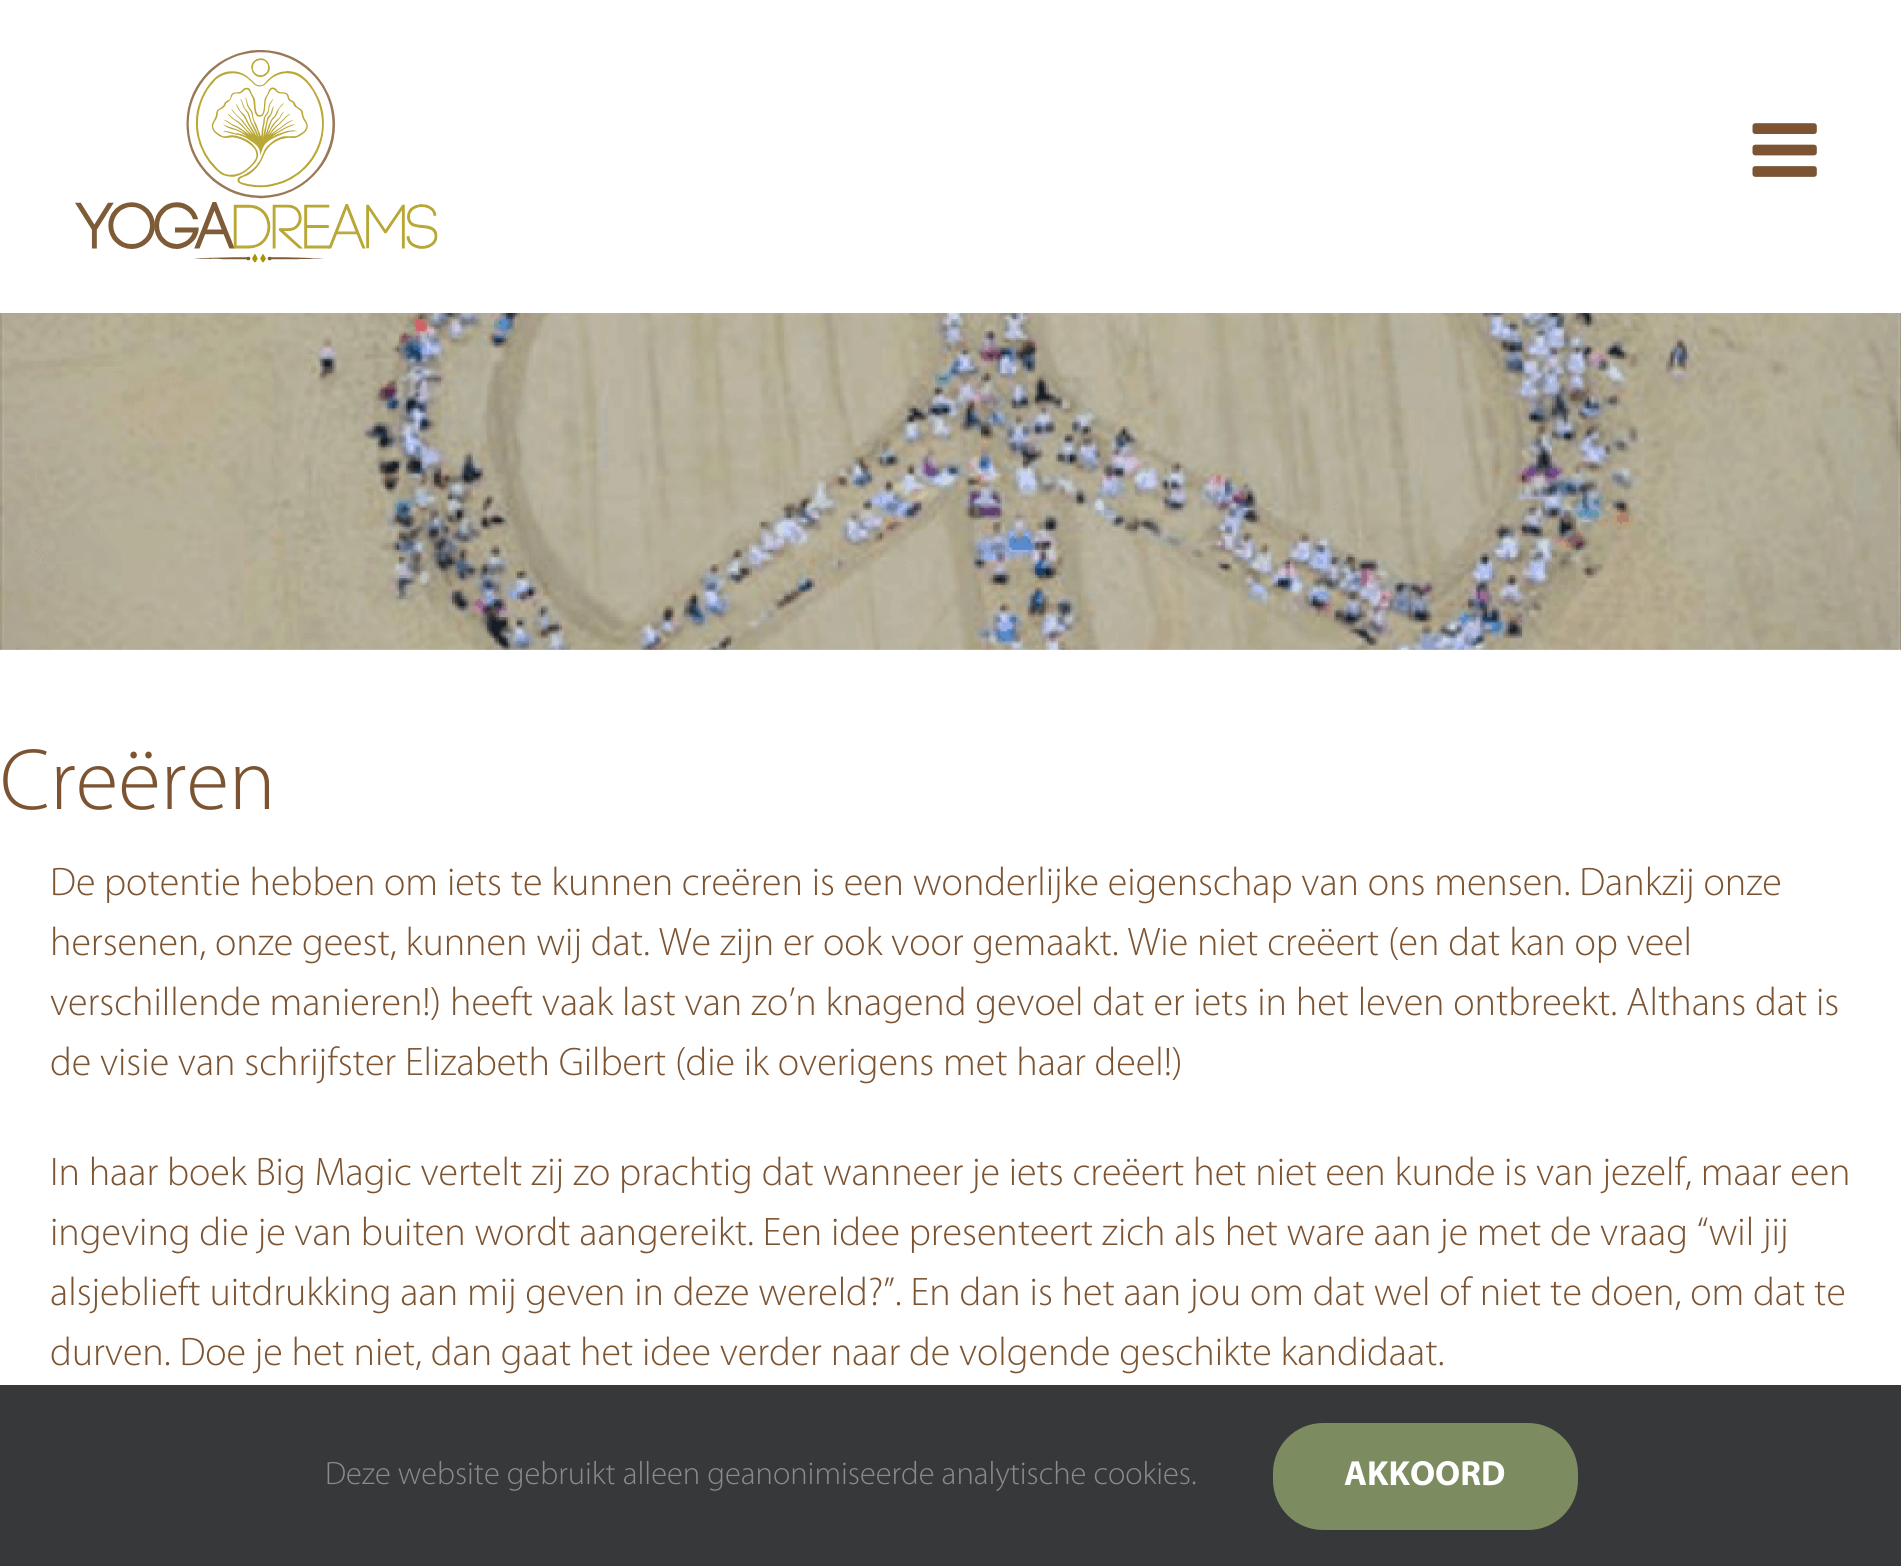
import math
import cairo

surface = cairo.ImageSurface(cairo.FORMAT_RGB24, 1901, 1566)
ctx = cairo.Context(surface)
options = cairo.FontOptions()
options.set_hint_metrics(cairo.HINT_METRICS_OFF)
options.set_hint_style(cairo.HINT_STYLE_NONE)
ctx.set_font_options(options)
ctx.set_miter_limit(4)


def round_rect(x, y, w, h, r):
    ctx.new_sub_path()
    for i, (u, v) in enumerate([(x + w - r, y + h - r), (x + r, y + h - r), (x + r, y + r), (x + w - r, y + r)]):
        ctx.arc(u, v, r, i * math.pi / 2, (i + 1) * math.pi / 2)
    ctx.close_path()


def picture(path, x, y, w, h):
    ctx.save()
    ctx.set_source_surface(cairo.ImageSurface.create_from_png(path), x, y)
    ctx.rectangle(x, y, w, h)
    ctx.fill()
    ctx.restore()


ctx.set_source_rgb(1, 1, 1)
ctx.paint()
picture("img1.png", 75, 50, 363, 213)
picture("img2.png", 1752, 123, 65, 54)
picture("img3.png", 0, 313, 1901, 337)
ctx.select_font_face("Myriad Light")
ctx.set_font_size(87.5)
ctx.set_source_rgb(0.486, 0.329, 0.196)
ctx.move_to(0, 809)
ctx.show_text("Creëren")
ctx.set_font_size(40)
ctx.move_to(50, 895)
ctx.show_text("De potentie hebben om iets te kunnen creëren is een wonderlijke eigenschap van ons mensen. Dankzij onze")
ctx.move_to(50, 955)
ctx.show_text("hersenen, onze geest, kunnen wij dat. We zijn er ook voor gemaakt. Wie niet creëert (en dat kan op veel")
ctx.move_to(50, 1015)
ctx.show_text("verschillende manieren!) heeft vaak last van zo’n knagend gevoel dat er iets in het leven ontbreekt. Althans dat is")
ctx.move_to(50, 1075)
ctx.show_text("de visie van schrijfster Elizabeth Gilbert (die ik overigens met haar deel!)")
ctx.move_to(50, 1185)
ctx.show_text("In haar boek Big Magic vertelt zij zo prachtig dat wanneer je iets creëert het niet een kunde is van jezelf, maar een")
ctx.move_to(50, 1245)
ctx.show_text("ingeving die je van buiten wordt aangereikt. Een idee presenteert zich als het ware aan je met de vraag “wil jij")
ctx.move_to(50, 1305)
ctx.show_text("alsjeblieft uitdrukking aan mij geven in deze wereld?”. En dan is het aan jou om dat wel of niet te doen, om dat te")
ctx.move_to(50, 1365)
ctx.show_text("durven. Doe je het niet, dan gaat het idee verder naar de volgende geschikte kandidaat.")
ctx.set_source_rgb(0.212, 0.22, 0.224)
ctx.rectangle(0, 1385, 1901, 181)
ctx.fill()
ctx.set_font_size(32.5)
ctx.set_source_rgb(0.549, 0.537, 0.537)
ctx.move_to(325, 1484)
ctx.show_text("Deze website gebruikt alleen geanonimiseerde analytische cookies.")
ctx.set_source_rgb(0.49, 0.545, 0.376)
round_rect(1273, 1423, 305, 107, 50)
ctx.fill()
ctx.select_font_face("Myriad", cairo.FONT_SLANT_NORMAL, cairo.FONT_WEIGHT_BOLD)
ctx.set_font_size(35)
ctx.set_source_rgb(1, 1, 1)
ctx.move_to(1344, 1485)
ctx.show_text("AKKOORD")
surface.write_to_png("page.png")
